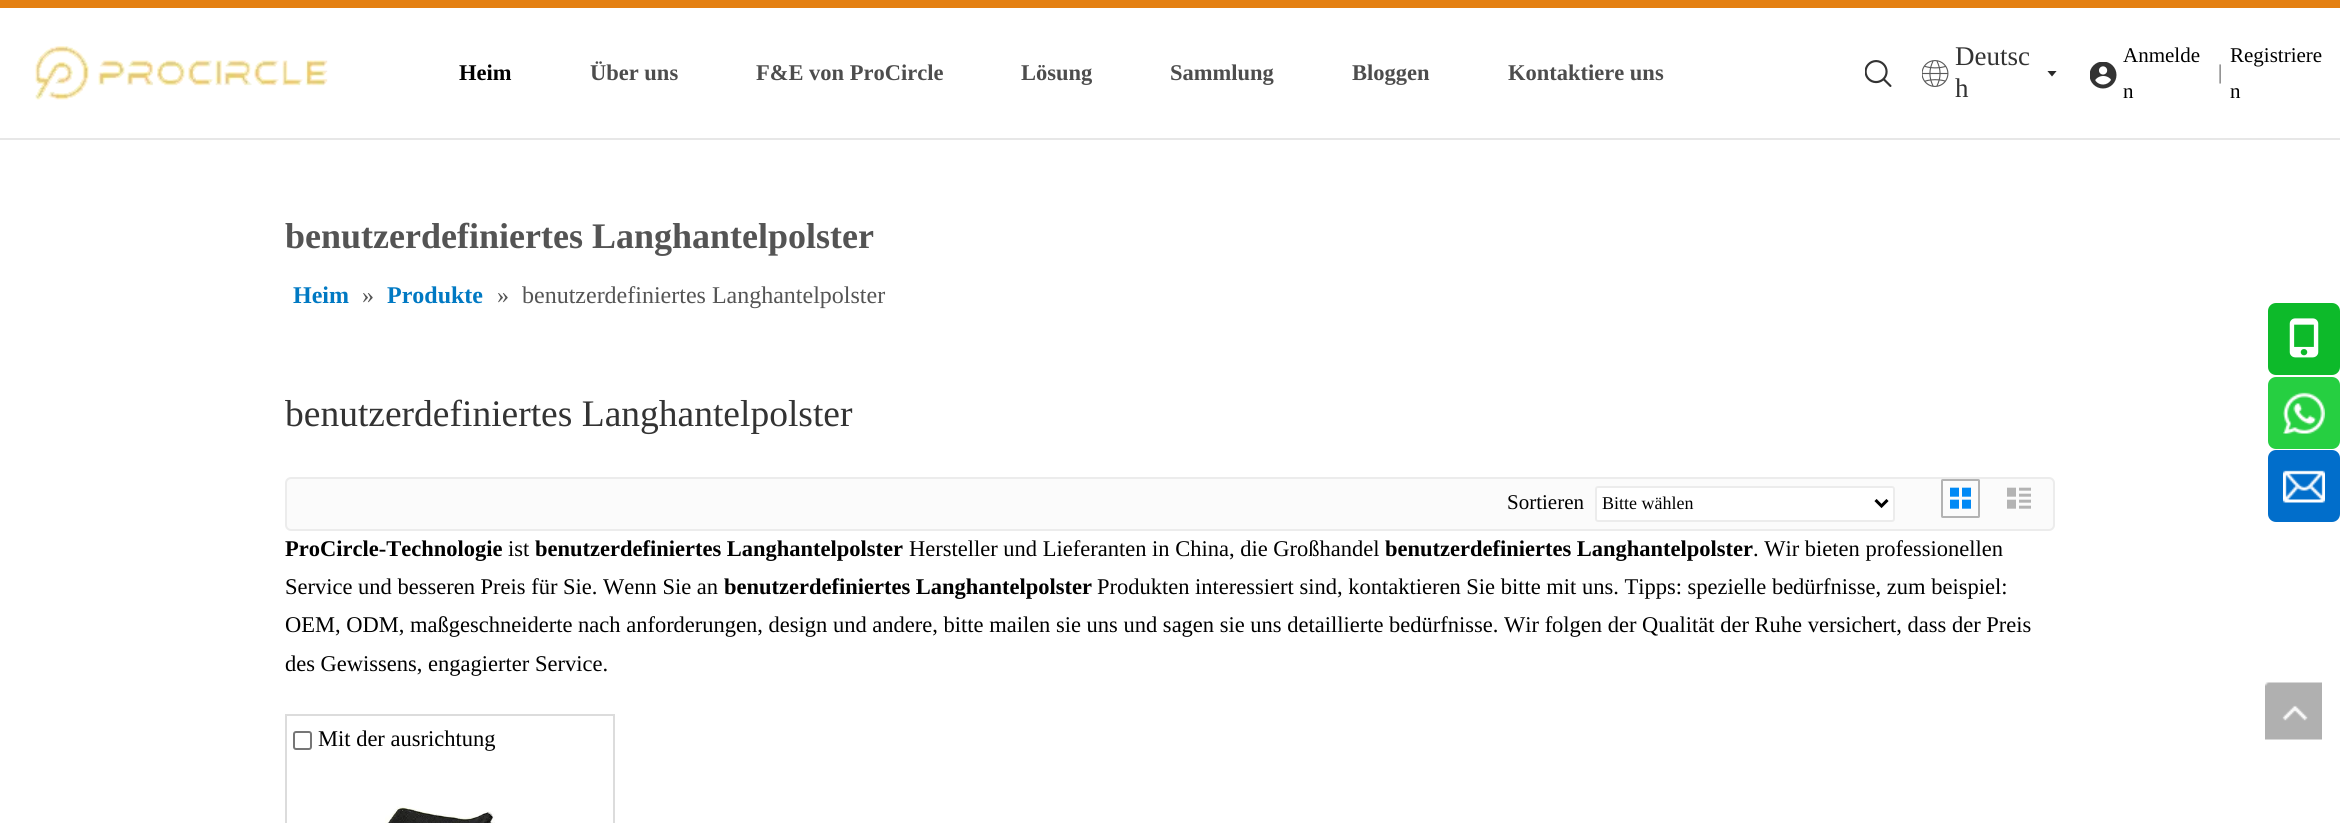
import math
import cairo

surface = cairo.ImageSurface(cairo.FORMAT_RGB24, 2340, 823)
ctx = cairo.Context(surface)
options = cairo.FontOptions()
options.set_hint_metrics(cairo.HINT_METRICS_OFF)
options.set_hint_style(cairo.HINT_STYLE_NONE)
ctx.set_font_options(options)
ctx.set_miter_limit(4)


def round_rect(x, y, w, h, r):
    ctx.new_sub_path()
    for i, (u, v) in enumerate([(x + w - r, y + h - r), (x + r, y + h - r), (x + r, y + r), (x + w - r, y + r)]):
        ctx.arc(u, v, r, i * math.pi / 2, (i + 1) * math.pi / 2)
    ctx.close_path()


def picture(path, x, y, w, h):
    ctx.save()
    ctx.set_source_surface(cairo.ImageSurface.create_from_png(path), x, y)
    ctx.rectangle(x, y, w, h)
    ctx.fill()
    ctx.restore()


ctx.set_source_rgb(1, 1, 1)
ctx.paint()
ctx.set_source_rgb(0.894, 0.502, 0.071)
ctx.rectangle(0, 0, 2340, 8)
ctx.fill()
ctx.set_source_rgb(0.906, 0.906, 0.906)
ctx.rectangle(0, 138, 2340, 2)
ctx.fill()
picture("img1.png", 35, 46, 293, 54)
ctx.select_font_face("Liberation Serif", cairo.FONT_SLANT_NORMAL, cairo.FONT_WEIGHT_BOLD)
ctx.set_font_size(22.5)
ctx.set_source_rgb(0, 0, 0)
ctx.move_to(459, 80)
ctx.show_text("Heim")
ctx.set_source_rgb(0.302, 0.302, 0.302)
ctx.move_to(590, 80)
ctx.show_text("Über uns")
ctx.move_to(756, 80)
ctx.show_text("F&E von ProCircle")
ctx.move_to(1021, 80)
ctx.show_text("Lösung")
ctx.move_to(1170, 80)
ctx.show_text("Sammlung")
ctx.move_to(1352, 80)
ctx.show_text("Bloggen")
ctx.move_to(1508, 80)
ctx.show_text("Kontaktiere uns")
picture("img2.png", 1865, 60, 27, 27)
picture("img3.png", 1922, 60, 27, 27)
ctx.select_font_face("Liberation Serif")
ctx.set_font_size(27)
ctx.set_source_rgb(0.2, 0.2, 0.2)
ctx.move_to(1955, 65)
ctx.show_text("Deutsc")
ctx.move_to(1955, 97)
ctx.show_text("h")
ctx.save()
ctx.rectangle(2045, 71, 15, 6)
ctx.clip()
ctx.set_source_rgb(0.165, 0.165, 0.165)
ctx.set_fill_rule(cairo.FILL_RULE_EVEN_ODD)
ctx.new_path()
ctx.move_to(2052, 76.5)
ctx.line_to(2057, 70.5)
ctx.line_to(2047, 70.5)
ctx.close_path()
ctx.fill()
ctx.restore()
picture("img4.png", 2090, 62, 27, 27)
ctx.set_font_size(21)
ctx.set_source_rgb(0, 0, 0)
ctx.move_to(2123, 62)
ctx.show_text("Anmelde")
ctx.move_to(2123, 98)
ctx.show_text("n")
ctx.set_source_rgb(0.329, 0.329, 0.329)
ctx.move_to(2218, 79)
ctx.show_text("|")
ctx.set_source_rgb(0, 0, 0)
ctx.move_to(2230, 62)
ctx.show_text("Registriere")
ctx.move_to(2230, 98)
ctx.show_text("n")
ctx.select_font_face("Liberation Serif", cairo.FONT_SLANT_NORMAL, cairo.FONT_WEIGHT_BOLD)
ctx.set_font_size(36)
ctx.set_source_rgb(0.329, 0.329, 0.329)
ctx.move_to(285, 248)
ctx.show_text("benutzerdefiniertes Langhantelpolster")
ctx.set_font_size(24)
ctx.set_source_rgb(0, 0.475, 0.765)
ctx.move_to(293, 303)
ctx.show_text("Heim")
ctx.select_font_face("Liberation Serif")
ctx.set_source_rgb(0.329, 0.329, 0.329)
ctx.move_to(362, 303)
ctx.show_text("»")
ctx.select_font_face("Liberation Serif", cairo.FONT_SLANT_NORMAL, cairo.FONT_WEIGHT_BOLD)
ctx.set_source_rgb(0, 0.475, 0.765)
ctx.move_to(387, 303)
ctx.show_text("Produkte")
ctx.select_font_face("Liberation Serif")
ctx.set_source_rgb(0.329, 0.329, 0.329)
ctx.move_to(497, 303)
ctx.show_text("»")
ctx.move_to(522, 303)
ctx.show_text("benutzerdefiniertes Langhantelpolster")
ctx.set_font_size(37.5)
ctx.set_source_rgb(0.2, 0.2, 0.2)
ctx.move_to(285, 426)
ctx.show_text("benutzerdefiniertes Langhantelpolster")
ctx.set_source_rgb(0.984, 0.984, 0.984)
round_rect(286, 478, 1768, 52, 5)
ctx.fill_preserve()
ctx.set_source_rgb(0.925, 0.925, 0.925)
ctx.stroke()
ctx.set_font_size(21)
ctx.set_source_rgb(0, 0, 0)
ctx.move_to(1507, 509)
ctx.show_text("Sortieren")
ctx.set_source_rgb(1, 1, 1)
round_rect(1596, 487, 298, 34, 2)
ctx.fill_preserve()
ctx.set_source_rgb(0.925, 0.925, 0.925)
ctx.stroke()
ctx.new_path()
ctx.move_to(1875.5, 500)
ctx.line_to(1881.5, 506)
ctx.line_to(1887.5, 500)
ctx.set_source_rgb(0, 0, 0)
ctx.set_line_width(3)
ctx.stroke()
ctx.set_font_size(18)
ctx.move_to(1602, 509)
ctx.show_text("Bitte wählen")
round_rect(1942, 480, 37, 37, 0.5)
ctx.set_source_rgb(0.702, 0.702, 0.702)
ctx.set_line_width(2)
ctx.stroke()
picture("img5.png", 1950, 487, 21, 22)
picture("img6.png", 2007, 487, 24, 22)
ctx.select_font_face("Liberation Serif", cairo.FONT_SLANT_NORMAL, cairo.FONT_WEIGHT_BOLD)
ctx.set_font_size(22.5)
ctx.set_source_rgb(0, 0, 0)
ctx.move_to(285, 556)
ctx.show_text("ProCircle-Technologie")
ctx.select_font_face("Liberation Serif")
ctx.move_to(508, 556)
ctx.show_text("ist")
ctx.select_font_face("Liberation Serif", cairo.FONT_SLANT_NORMAL, cairo.FONT_WEIGHT_BOLD)
ctx.move_to(535, 556)
ctx.show_text("benutzerdefiniertes Langhantelpolster")
ctx.select_font_face("Liberation Serif")
ctx.move_to(909, 556)
ctx.show_text("Hersteller und Lieferanten in China, die Großhandel")
ctx.select_font_face("Liberation Serif", cairo.FONT_SLANT_NORMAL, cairo.FONT_WEIGHT_BOLD)
ctx.move_to(1385, 556)
ctx.show_text("benutzerdefiniertes Langhantelpolster")
ctx.select_font_face("Liberation Serif")
ctx.move_to(1753, 556)
ctx.show_text(". Wir bieten professionellen")
ctx.move_to(285, 594)
ctx.show_text("Service und besseren Preis für Sie. Wenn Sie an")
ctx.select_font_face("Liberation Serif", cairo.FONT_SLANT_NORMAL, cairo.FONT_WEIGHT_BOLD)
ctx.move_to(724, 594)
ctx.show_text("benutzerdefiniertes Langhantelpolster")
ctx.select_font_face("Liberation Serif")
ctx.move_to(1097, 594)
ctx.show_text("Produkten interessiert sind, kontaktieren Sie bitte mit uns. Tipps: spezielle bedürfnisse, zum beispiel:")
ctx.move_to(285, 632)
ctx.show_text("OEM, ODM, maßgeschneiderte nach anforderungen, design und andere, bitte mailen sie uns und sagen sie uns detaillierte bedürfnisse. Wir folgen der Qualität der Ruhe versichert, dass der Preis")
ctx.move_to(285, 671)
ctx.show_text("des Gewissens, engagierter Service.")
ctx.rectangle(286, 715, 328, 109)
ctx.set_source_rgb(0.863, 0.863, 0.863)
ctx.stroke()
round_rect(294, 732, 17, 17, 2)
ctx.set_source_rgb(0.463, 0.463, 0.463)
ctx.stroke()
ctx.set_source_rgb(0, 0, 0)
ctx.move_to(318, 746)
ctx.show_text("Mit der ausrichtung")
picture("img7.png", 385, 806, 110, 17)
ctx.set_source_rgb(0.051, 0.729, 0.165)
round_rect(2268, 303, 72, 72, 8)
ctx.fill()
picture("img8.png", 2289, 318, 30, 40)
ctx.set_source_rgb(0.149, 0.812, 0.255)
round_rect(2268, 377, 72, 72, 8)
ctx.fill()
picture("img9.png", 2283, 392, 42, 42)
ctx.set_source_rgb(0.004, 0.431, 0.796)
round_rect(2268, 450, 72, 72, 8)
ctx.fill()
picture("img10.png", 2283, 470, 42, 33)
picture("img11.png", 2265, 682, 57, 58)
surface.write_to_png("page.png")
